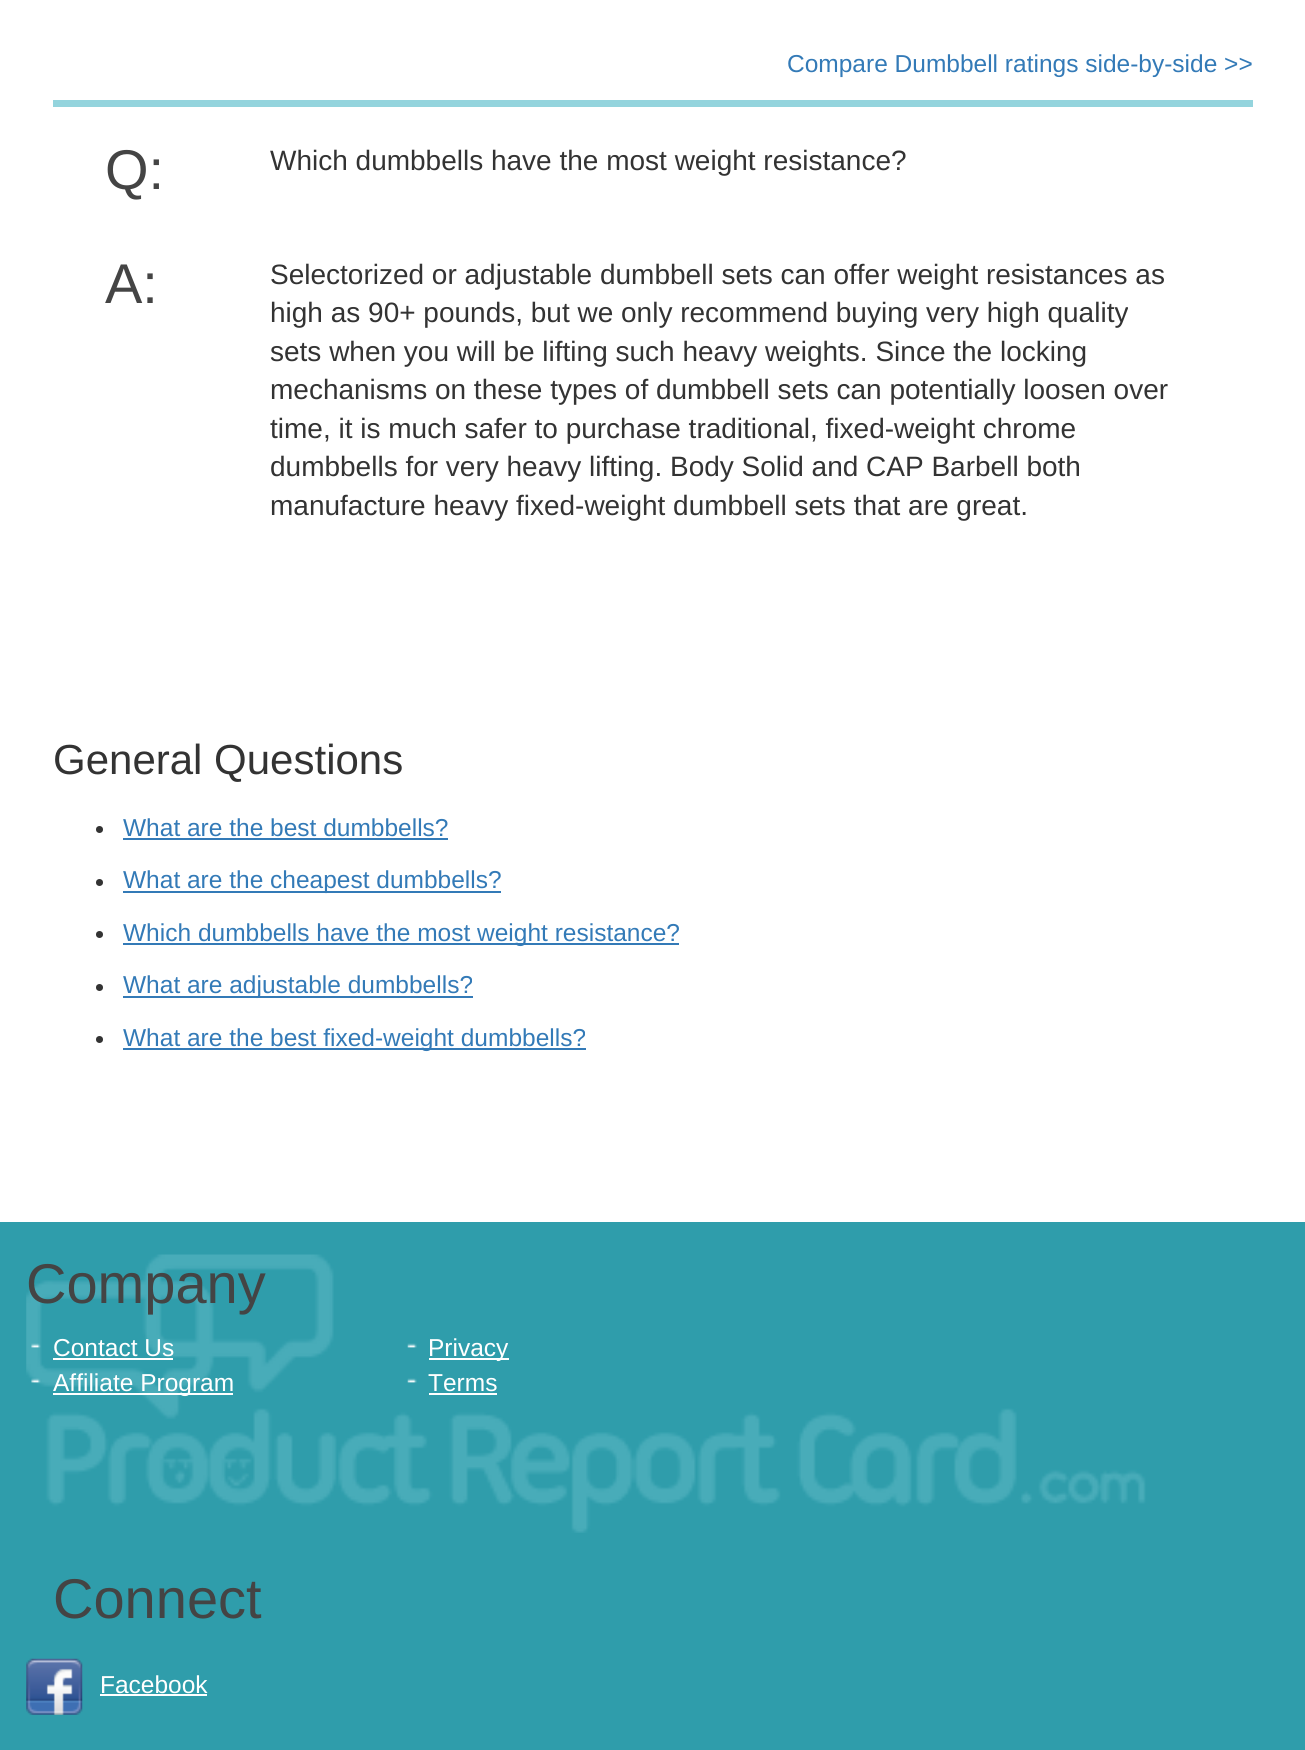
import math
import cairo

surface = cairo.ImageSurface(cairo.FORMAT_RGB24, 1305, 1750)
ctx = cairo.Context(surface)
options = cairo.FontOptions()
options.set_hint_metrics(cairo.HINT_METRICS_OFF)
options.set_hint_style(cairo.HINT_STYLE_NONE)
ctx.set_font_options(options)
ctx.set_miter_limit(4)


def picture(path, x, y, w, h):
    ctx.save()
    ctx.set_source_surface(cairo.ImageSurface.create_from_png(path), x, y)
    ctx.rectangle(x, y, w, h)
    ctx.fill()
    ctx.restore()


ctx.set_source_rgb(1, 1, 1)
ctx.paint()
ctx.select_font_face("Liberation Sans")
ctx.set_font_size(24.5)
ctx.set_source_rgb(0.2, 0.478, 0.718)
ctx.move_to(787, 72)
ctx.show_text("Compare Dumbbell ratings side-by-side >>")
ctx.set_source_rgb(0.58, 0.831, 0.867)
ctx.rectangle(53, 100, 1200, 7)
ctx.fill()
ctx.set_font_size(56)
ctx.set_source_rgb(0.267, 0.267, 0.267)
ctx.move_to(105, 189)
ctx.show_text("Q:")
ctx.set_font_size(28)
ctx.set_source_rgb(0.2, 0.2, 0.2)
ctx.move_to(270, 170)
ctx.show_text("Which dumbbells have the most weight resistance?")
ctx.set_font_size(56)
ctx.set_source_rgb(0.267, 0.267, 0.267)
ctx.move_to(105, 303)
ctx.show_text("A:")
ctx.set_font_size(28)
ctx.set_source_rgb(0.2, 0.2, 0.2)
ctx.move_to(270, 284)
ctx.show_text("Selectorized or adjustable dumbbell sets can offer weight resistances as")
ctx.move_to(270, 322)
ctx.show_text("high as 90+ pounds, but we only recommend buying very high quality")
ctx.move_to(270, 361)
ctx.show_text("sets when you will be lifting such heavy weights. Since the locking")
ctx.move_to(270, 399)
ctx.show_text("mechanisms on these types of dumbbell sets can potentially loosen over")
ctx.move_to(270, 438)
ctx.show_text("time, it is much safer to purchase traditional, fixed-weight chrome")
ctx.move_to(270, 476)
ctx.show_text("dumbbells for very heavy lifting. Body Solid and CAP Barbell both")
ctx.move_to(270, 515)
ctx.show_text("manufacture heavy fixed-weight dumbbell sets that are great.")
ctx.set_font_size(42)
ctx.move_to(53, 774)
ctx.show_text("General Questions")
ctx.new_path()
ctx.arc(99.5, 829.5, 3.5, 0, 2 * math.pi)
ctx.fill()
ctx.set_font_size(24.5)
ctx.set_source_rgb(0.2, 0.478, 0.718)
ctx.move_to(123, 836)
ctx.show_text("What are the best dumbbells?")
ctx.rectangle(123, 838, 325, 2)
ctx.fill()
ctx.set_source_rgb(0.2, 0.2, 0.2)
ctx.arc(99.5, 882.5, 3.5, 0, 2 * math.pi)
ctx.fill()
ctx.set_source_rgb(0.2, 0.478, 0.718)
ctx.rectangle(123, 891, 378, 2)
ctx.fill()
ctx.move_to(123, 888)
ctx.show_text("What are the cheapest dumbbells?")
ctx.set_source_rgb(0.2, 0.2, 0.2)
ctx.new_path()
ctx.arc(99.5, 934.5, 3.5, 0, 2 * math.pi)
ctx.fill()
ctx.set_source_rgb(0.2, 0.478, 0.718)
ctx.rectangle(123, 943, 556, 2)
ctx.fill()
ctx.move_to(123, 941)
ctx.show_text("Which dumbbells have the most weight resistance?")
ctx.set_source_rgb(0.2, 0.2, 0.2)
ctx.new_path()
ctx.arc(99.5, 987.5, 3.5, 0, 2 * math.pi)
ctx.fill()
ctx.set_source_rgb(0.2, 0.478, 0.718)
ctx.rectangle(123, 996, 350, 2)
ctx.fill()
ctx.move_to(123, 993)
ctx.show_text("What are adjustable dumbbells?")
ctx.set_source_rgb(0.2, 0.2, 0.2)
ctx.new_path()
ctx.arc(99.5, 1039.5, 3.5, 0, 2 * math.pi)
ctx.fill()
ctx.set_source_rgb(0.2, 0.478, 0.718)
ctx.rectangle(123, 1048, 463, 2)
ctx.fill()
ctx.move_to(123, 1046)
ctx.show_text("What are the best fixed-weight dumbbells?")
ctx.set_source_rgb(0.184, 0.616, 0.671)
ctx.rectangle(0, 1222, 1305, 528)
ctx.fill()
picture("img4.png", 26, 1254, 1120, 279)
ctx.set_font_size(56)
ctx.set_source_rgb(0.267, 0.267, 0.267)
ctx.move_to(26, 1303)
ctx.show_text("Company")
picture("img1.png", 31, 1343, 10, 5)
ctx.set_font_size(24.5)
ctx.set_source_rgb(1, 1, 1)
ctx.move_to(53, 1356)
ctx.show_text("Contact Us")
ctx.rectangle(53, 1358, 120, 2)
ctx.fill()
picture("img2.png", 31, 1378, 10, 5)
ctx.rectangle(53, 1393, 180, 2)
ctx.fill()
ctx.move_to(53, 1391)
ctx.show_text("Affiliate Program")
picture("img3.png", 407, 1343, 10, 5)
ctx.rectangle(429, 1358, 80, 2)
ctx.fill()
ctx.move_to(428, 1356)
ctx.show_text("Privacy")
picture("img3.png", 407, 1378, 10, 5)
ctx.move_to(428, 1391)
ctx.show_text("Terms")
ctx.rectangle(429, 1393, 68, 2)
ctx.fill()
ctx.set_font_size(56)
ctx.set_source_rgb(0.267, 0.267, 0.267)
ctx.move_to(53, 1618)
ctx.show_text("Connect")
picture("img5.png", 26, 1658, 57, 57)
ctx.set_font_size(24.5)
ctx.set_source_rgb(1, 1, 1)
ctx.move_to(100, 1693)
ctx.show_text("Facebook")
ctx.rectangle(100, 1694, 107, 2)
ctx.fill()
surface.write_to_png("page.png")
